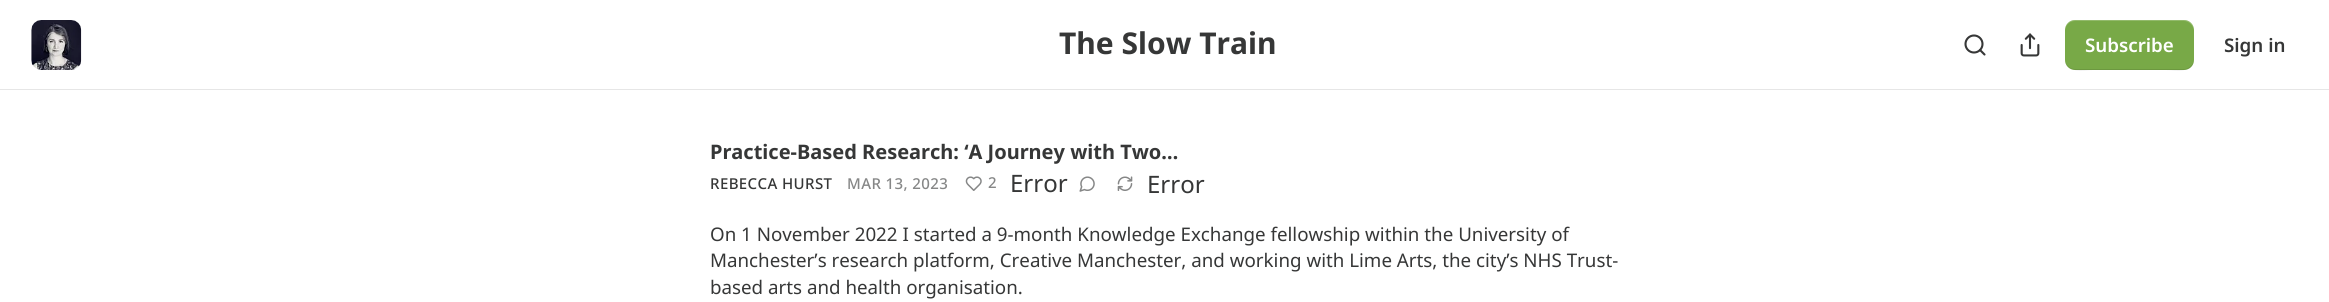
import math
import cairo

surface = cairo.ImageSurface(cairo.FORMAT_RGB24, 2329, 302)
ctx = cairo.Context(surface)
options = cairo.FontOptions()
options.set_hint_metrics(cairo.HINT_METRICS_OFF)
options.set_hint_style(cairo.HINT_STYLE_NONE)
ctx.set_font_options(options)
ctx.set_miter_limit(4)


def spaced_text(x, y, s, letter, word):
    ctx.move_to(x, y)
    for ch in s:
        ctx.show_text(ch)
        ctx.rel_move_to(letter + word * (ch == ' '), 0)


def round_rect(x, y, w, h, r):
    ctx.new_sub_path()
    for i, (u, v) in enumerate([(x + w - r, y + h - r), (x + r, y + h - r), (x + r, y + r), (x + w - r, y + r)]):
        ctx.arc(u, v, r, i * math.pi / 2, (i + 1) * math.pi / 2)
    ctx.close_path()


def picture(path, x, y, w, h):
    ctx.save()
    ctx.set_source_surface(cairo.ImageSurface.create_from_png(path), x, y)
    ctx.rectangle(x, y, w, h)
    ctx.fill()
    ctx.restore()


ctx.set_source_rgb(1, 1, 1)
ctx.paint()
ctx.set_source_rgb(0.902, 0.902, 0.902)
ctx.rectangle(0, 89, 2329, 1)
ctx.fill()
picture("img1.png", 31, 20, 51, 50)
ctx.select_font_face("Noto Sans", cairo.FONT_SLANT_NORMAL, cairo.FONT_WEIGHT_BOLD)
ctx.set_font_size(30)
ctx.set_source_rgb(0.212, 0.216, 0.216)
ctx.move_to(1059, 54)
ctx.show_text("The Slow Train")
ctx.new_path()
ctx.arc(1974, 44, 8.5, 0, 2 * math.pi)
ctx.set_line_width(2.1)
ctx.stroke()
ctx.new_path()
ctx.move_to(1984.5, 54.5)
ctx.line_to(1980, 50)
ctx.set_line_cap(cairo.LINE_CAP_ROUND)
ctx.set_line_join(cairo.LINE_JOIN_ROUND)
ctx.stroke()
picture("img2.png", 2020, 33, 20, 24)
ctx.set_source_rgb(0.471, 0.663, 0.278)
round_rect(2065, 20, 129, 50, 10)
ctx.fill()
ctx.set_source_rgba(0, 0, 0, 0.1)
ctx.new_path()
ctx.move_to(2065, 59)
ctx.curve_to(2065, 74, 2083, 70, 2093, 70)
ctx.line_to(2166, 70)
ctx.curve_to(2176, 70, 2194, 74, 2194, 59)
ctx.curve_to(2194, 64, 2189, 69, 2184, 69)
ctx.line_to(2075, 69)
ctx.curve_to(2069, 69, 2065, 64, 2065, 59)
ctx.close_path()
ctx.fill()
ctx.set_source_rgba(1, 1, 1, 0.2)
ctx.new_path()
ctx.move_to(2075, 21)
ctx.line_to(2184, 21)
ctx.curve_to(2189, 21, 2194, 26, 2194, 31)
ctx.curve_to(2194, 16, 2176, 20, 2166, 20)
ctx.line_to(2093, 20)
ctx.curve_to(2083, 20, 2065, 16, 2065, 31)
ctx.curve_to(2065, 26, 2069, 21, 2075, 21)
ctx.close_path()
ctx.fill()
ctx.select_font_face("Noto Sans SemiBold")
ctx.set_font_size(18.75)
ctx.set_source_rgb(1, 1, 1)
ctx.move_to(2085, 52)
ctx.show_text("Subscribe")
ctx.set_source_rgb(0.212, 0.216, 0.216)
ctx.move_to(2224, 52)
ctx.show_text("Sign in")
ctx.select_font_face("Noto Sans", cairo.FONT_SLANT_NORMAL, cairo.FONT_WEIGHT_BOLD)
ctx.set_font_size(20)
ctx.move_to(710, 159)
ctx.show_text("Practice-Based Research: ‘A Journey with Two…")
ctx.select_font_face("Noto Sans Medium")
ctx.set_font_size(15)
spaced_text(710, 189, "REBECCA HURST", 0.4, 0)
ctx.set_source_rgb(0.525, 0.529, 0.529)
spaced_text(847, 189, "MAR 13, 2023", 0.4, 0)
picture("img3.png", 965, 176, 17, 15)
spaced_text(988, 188, "2", 0.4, 0)
ctx.select_font_face("Noto Sans")
ctx.set_font_size(24)
ctx.set_source_rgb(0.212, 0.216, 0.216)
ctx.move_to(1010, 192)
ctx.show_text("Error")
picture("img4.png", 1079, 176, 16, 16)
picture("img5.png", 1117, 176, 16, 15)
ctx.move_to(1147, 193)
ctx.show_text("Error")
ctx.set_font_size(18.75)
ctx.move_to(710, 241)
ctx.show_text("On 1 November 2022 I started a 9-month Knowledge Exchange fellowship within the University of")
ctx.move_to(710, 267)
ctx.show_text("Manchester’s research platform, Creative Manchester, and working with Lime Arts, the city’s NHS Trust-")
ctx.move_to(710, 294)
ctx.show_text("based arts and health organisation.")
surface.write_to_png("page.png")
